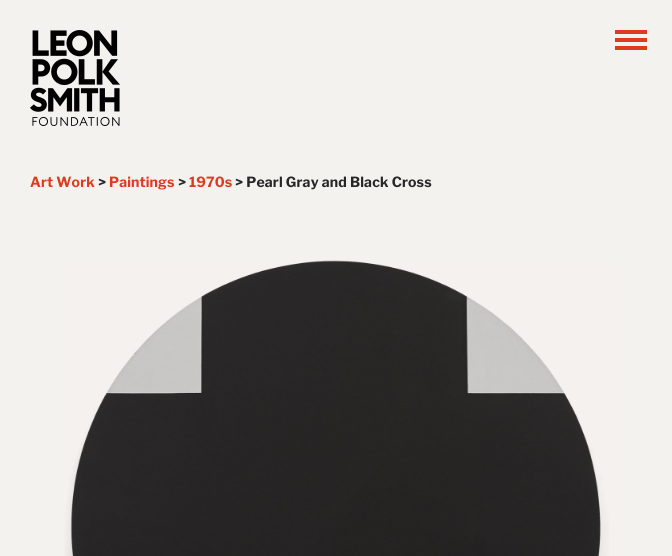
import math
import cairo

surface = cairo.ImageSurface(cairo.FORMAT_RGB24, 672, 556)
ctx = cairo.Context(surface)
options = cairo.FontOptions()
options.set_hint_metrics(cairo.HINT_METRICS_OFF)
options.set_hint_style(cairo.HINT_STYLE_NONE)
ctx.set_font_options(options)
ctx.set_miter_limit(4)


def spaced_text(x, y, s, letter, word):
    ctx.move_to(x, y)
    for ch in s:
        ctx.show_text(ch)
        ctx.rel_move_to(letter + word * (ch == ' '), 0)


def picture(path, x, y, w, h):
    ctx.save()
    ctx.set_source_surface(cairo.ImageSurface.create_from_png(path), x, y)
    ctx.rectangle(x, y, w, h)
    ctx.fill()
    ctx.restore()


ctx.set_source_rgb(0.957, 0.949, 0.937)
ctx.paint()
picture("img1.png", 30, 30, 90, 96)
ctx.set_source_rgb(0.871, 0.227, 0.114)
ctx.rectangle(615, 30, 32, 4)
ctx.fill()
ctx.rectangle(615, 38, 32, 4)
ctx.fill()
ctx.rectangle(615, 46, 32, 4)
ctx.fill()
ctx.select_font_face("Libre Franklin", cairo.FONT_SLANT_NORMAL, cairo.FONT_WEIGHT_BOLD)
ctx.set_font_size(14)
spaced_text(30, 187, "Art Work", 0.15, 0)
ctx.set_source_rgb(0.153, 0.149, 0.149)
spaced_text(98, 187, ">", 0.15, 0)
ctx.set_source_rgb(0.871, 0.227, 0.114)
spaced_text(109, 187, "Paintings", 0.15, 0)
ctx.set_source_rgb(0.153, 0.149, 0.149)
spaced_text(178, 187, ">", 0.15, 0)
ctx.set_source_rgb(0.871, 0.227, 0.114)
spaced_text(189, 187, "1970s", 0.15, 0)
ctx.set_source_rgb(0.153, 0.149, 0.149)
spaced_text(235, 187, "> Pearl Gray and Black Cross", 0.15, 0)
picture("img2.png", 64, 260, 545, 296)
surface.write_to_png("page.png")
